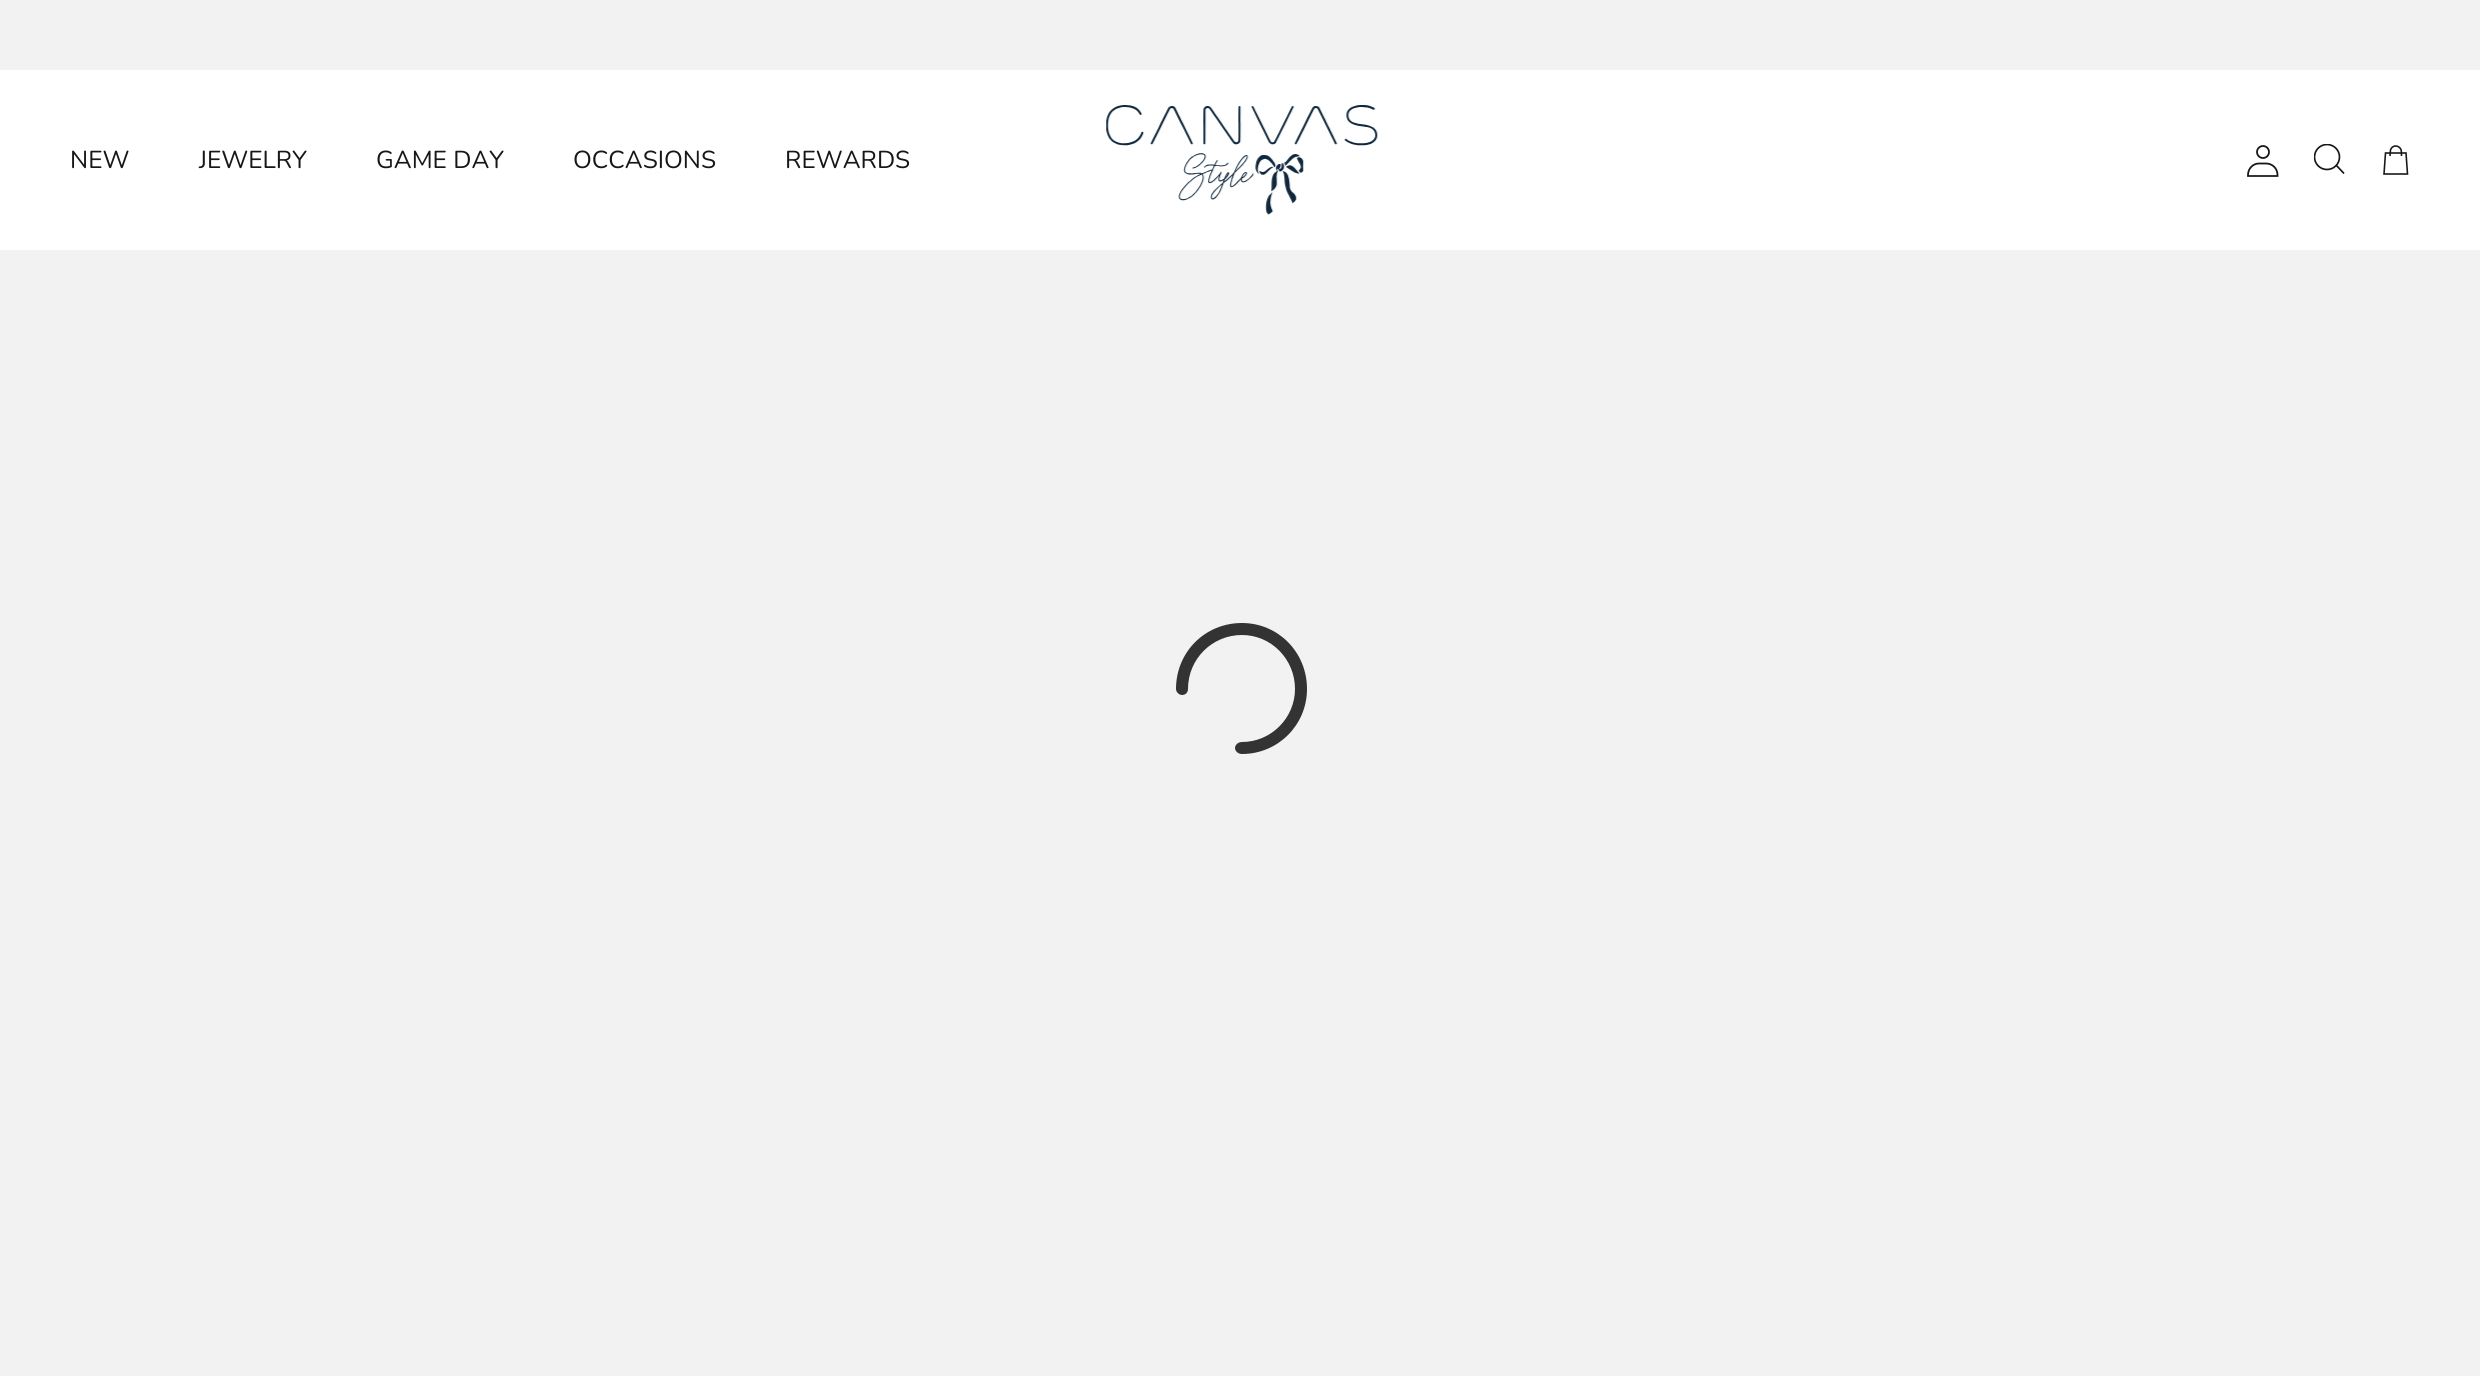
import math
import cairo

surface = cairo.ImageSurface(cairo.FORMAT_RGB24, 2480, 1376)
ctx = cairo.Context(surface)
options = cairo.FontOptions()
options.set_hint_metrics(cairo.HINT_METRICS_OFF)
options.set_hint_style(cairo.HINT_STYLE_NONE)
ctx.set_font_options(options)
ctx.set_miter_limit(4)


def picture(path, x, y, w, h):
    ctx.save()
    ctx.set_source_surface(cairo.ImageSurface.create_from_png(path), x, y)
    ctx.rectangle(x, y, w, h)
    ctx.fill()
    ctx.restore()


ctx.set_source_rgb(0.949, 0.949, 0.949)
ctx.paint()
ctx.set_source_rgb(1, 1, 1)
ctx.rectangle(0, 70, 2480, 180)
ctx.fill()
ctx.select_font_face("Nunito")
ctx.set_font_size(24.5)
ctx.set_source_rgb(0.09, 0.09, 0.09)
ctx.move_to(70, 168)
ctx.show_text("NEW")
ctx.move_to(199, 168)
ctx.show_text("JEWELRY")
ctx.move_to(376, 168)
ctx.show_text("GAME DAY")
ctx.move_to(573, 168)
ctx.show_text("OCCASIONS")
ctx.move_to(785, 168)
ctx.show_text("REWARDS")
picture("img1.png", 1106, 105, 272, 110)
ctx.arc(2263, 152, 6, 0, 2 * math.pi)
ctx.set_line_width(1.8)
ctx.stroke()
ctx.new_path()
ctx.move_to(2248, 175)
ctx.curve_to(2248, 168.5, 2253, 163.5, 2259, 163.5)
ctx.line_to(2266, 163.5)
ctx.curve_to(2272.5, 163.5, 2277.5, 168.5, 2277.5, 175)
ctx.line_to(2277.5, 176)
ctx.line_to(2248, 176)
ctx.close_path()
ctx.stroke()
ctx.save()
ctx.rectangle(2314, 144, 31, 31)
ctx.clip()
ctx.arc(2327, 157, 12.5, 0, 2 * math.pi)
ctx.set_line_width(1.7)
ctx.stroke()
ctx.restore()
ctx.new_path()
ctx.move_to(2336, 165)
ctx.line_to(2344, 173.5)
ctx.set_line_width(1.7)
ctx.stroke()
ctx.new_path()
ctx.move_to(2390, 156)
ctx.line_to(2390.5, 150)
ctx.curve_to(2392, 145, 2398.5, 144.5, 2401, 149.5)
ctx.curve_to(2401.5, 151.5, 2401.5, 154, 2401.5, 156)
ctx.move_to(2384, 174)
ctx.line_to(2385.5, 153)
ctx.line_to(2406, 153)
ctx.line_to(2407.5, 174)
ctx.close_path()
ctx.set_line_width(1.6)
ctx.stroke()
ctx.set_source_rgb(0.2, 0.2, 0.2)
ctx.new_path()
ctx.move_to(1242, 635)
ctx.curve_to(1212, 635, 1188, 659, 1188, 689)
ctx.curve_to(1188, 692, 1186, 695, 1182, 695)
ctx.curve_to(1179, 695, 1176, 692, 1176, 689)
ctx.curve_to(1176, 652, 1205, 623, 1242, 623)
ctx.curve_to(1278, 623, 1307, 652, 1307, 689)
ctx.curve_to(1307, 725, 1278, 754, 1242, 754)
ctx.curve_to(1238, 754, 1235, 751, 1235, 748)
ctx.curve_to(1235, 745, 1238, 742, 1242, 742)
ctx.curve_to(1271, 742, 1295, 718, 1295, 689)
ctx.curve_to(1295, 659, 1271, 635, 1242, 635)
ctx.close_path()
ctx.fill()
surface.write_to_png("page.png")
